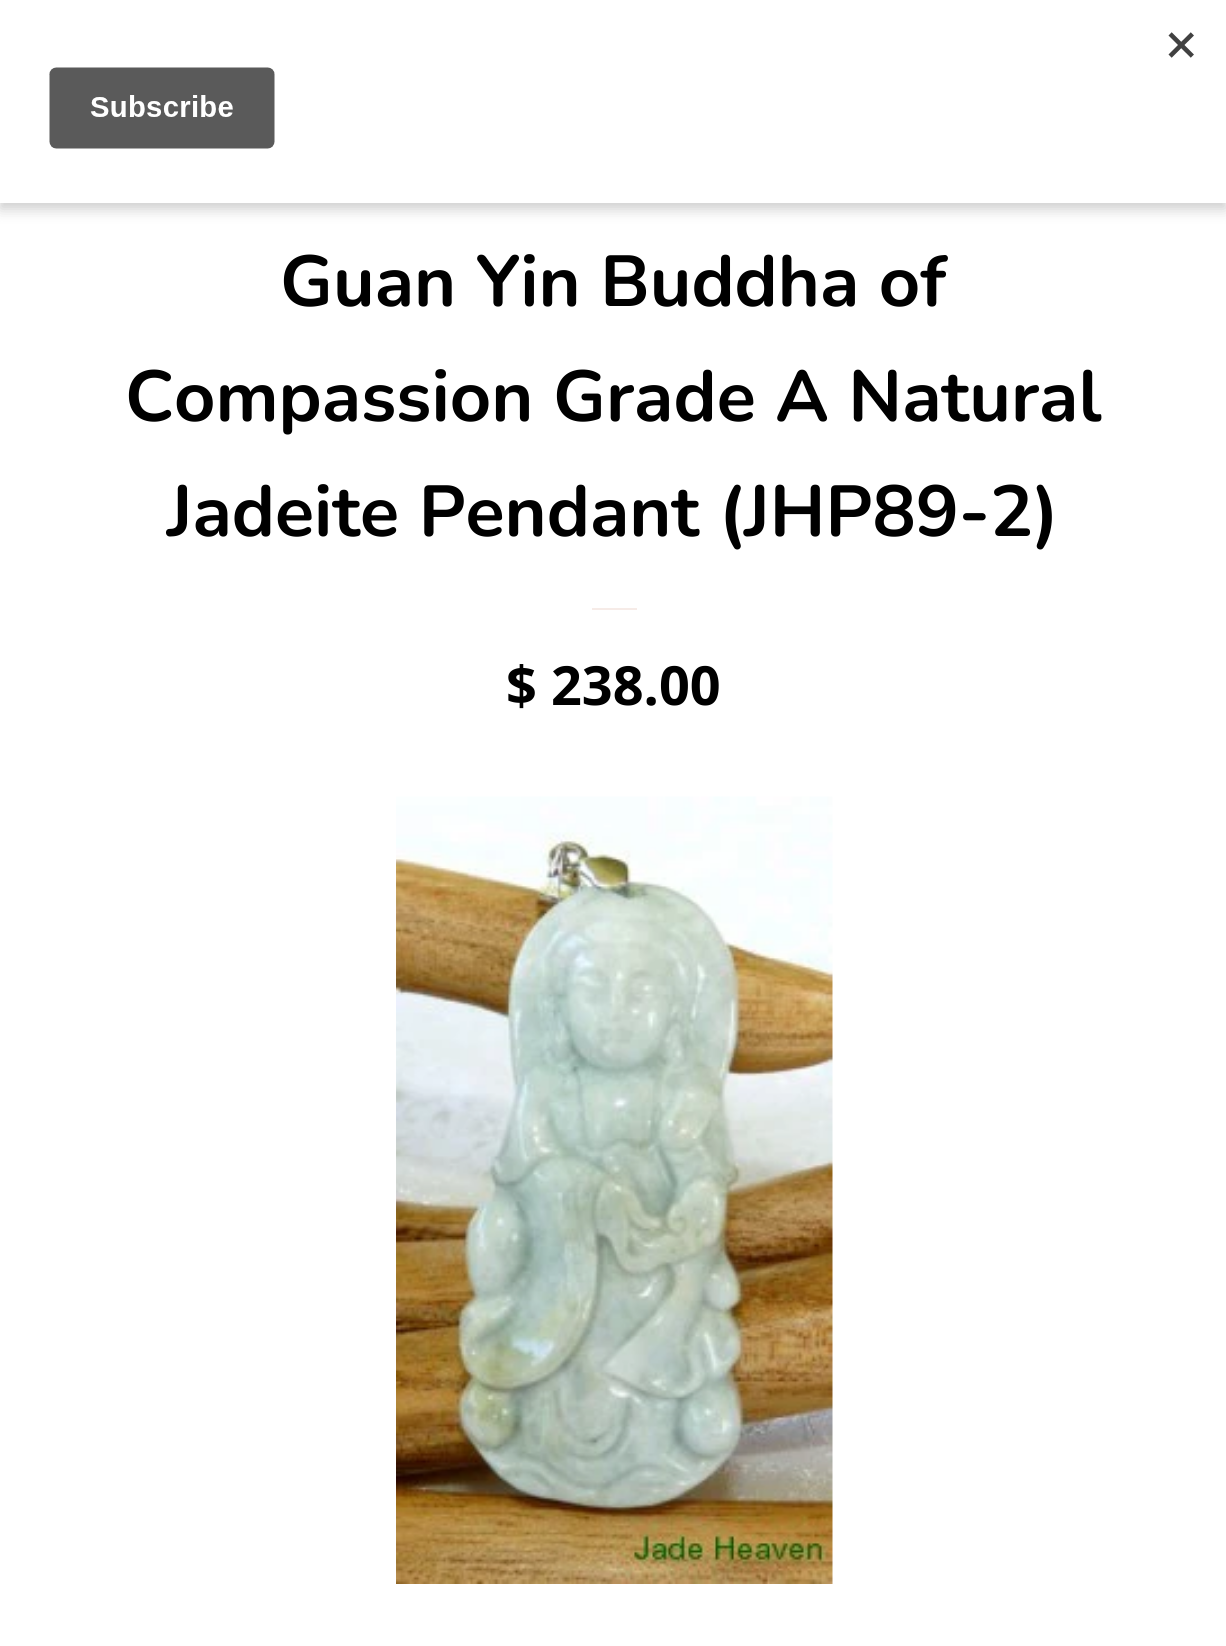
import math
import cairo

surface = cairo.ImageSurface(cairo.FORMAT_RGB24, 1226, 1646)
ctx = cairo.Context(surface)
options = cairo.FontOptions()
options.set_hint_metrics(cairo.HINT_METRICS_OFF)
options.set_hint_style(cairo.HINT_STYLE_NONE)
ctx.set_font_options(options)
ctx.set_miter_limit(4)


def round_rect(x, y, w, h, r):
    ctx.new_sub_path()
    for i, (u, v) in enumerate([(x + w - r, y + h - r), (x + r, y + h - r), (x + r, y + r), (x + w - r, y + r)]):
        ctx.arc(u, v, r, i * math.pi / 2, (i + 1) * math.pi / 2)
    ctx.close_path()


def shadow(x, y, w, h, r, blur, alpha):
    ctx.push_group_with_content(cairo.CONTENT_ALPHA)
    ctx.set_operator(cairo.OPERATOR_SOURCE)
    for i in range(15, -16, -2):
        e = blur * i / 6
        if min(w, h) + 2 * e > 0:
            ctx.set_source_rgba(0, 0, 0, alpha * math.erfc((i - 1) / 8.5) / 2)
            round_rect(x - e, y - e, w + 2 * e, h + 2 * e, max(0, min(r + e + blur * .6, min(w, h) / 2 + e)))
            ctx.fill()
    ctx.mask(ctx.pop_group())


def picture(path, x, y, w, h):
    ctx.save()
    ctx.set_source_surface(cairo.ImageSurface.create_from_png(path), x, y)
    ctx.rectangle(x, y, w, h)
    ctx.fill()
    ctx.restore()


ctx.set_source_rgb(1, 1, 1)
ctx.paint()
ctx.set_source_rgb(0, 0, 0)
shadow(0, 7, 1226, 202, 0, 7, 0.2)
ctx.set_source_rgb(1, 1, 1)
ctx.rectangle(0, 0, 1226, 203)
ctx.fill()
picture("img1.png", 49, 32, 1145, 117)
ctx.select_font_face("Nunito ExtraLight")
ctx.set_font_size(72)
ctx.set_source_rgb(0, 0, 0)
ctx.move_to(280, 306)
ctx.show_text("Guan Yin Buddha of")
ctx.move_to(125, 421)
ctx.show_text("Compassion Grade A Natural")
ctx.move_to(167, 536)
ctx.show_text("Jadeite Pendant (JHP89-2)")
ctx.set_source_rgb(0.961, 0.918, 0.906)
ctx.rectangle(592, 608, 45, 2)
ctx.fill()
ctx.select_font_face("Open Sans", cairo.FONT_SLANT_NORMAL, cairo.FONT_WEIGHT_BOLD)
ctx.set_font_size(54)
ctx.set_source_rgb(0, 0, 0)
ctx.move_to(506, 705)
ctx.show_text("$ 238.00")
picture("img2.png", 396, 796, 437, 788)
surface.write_to_png("page.png")
